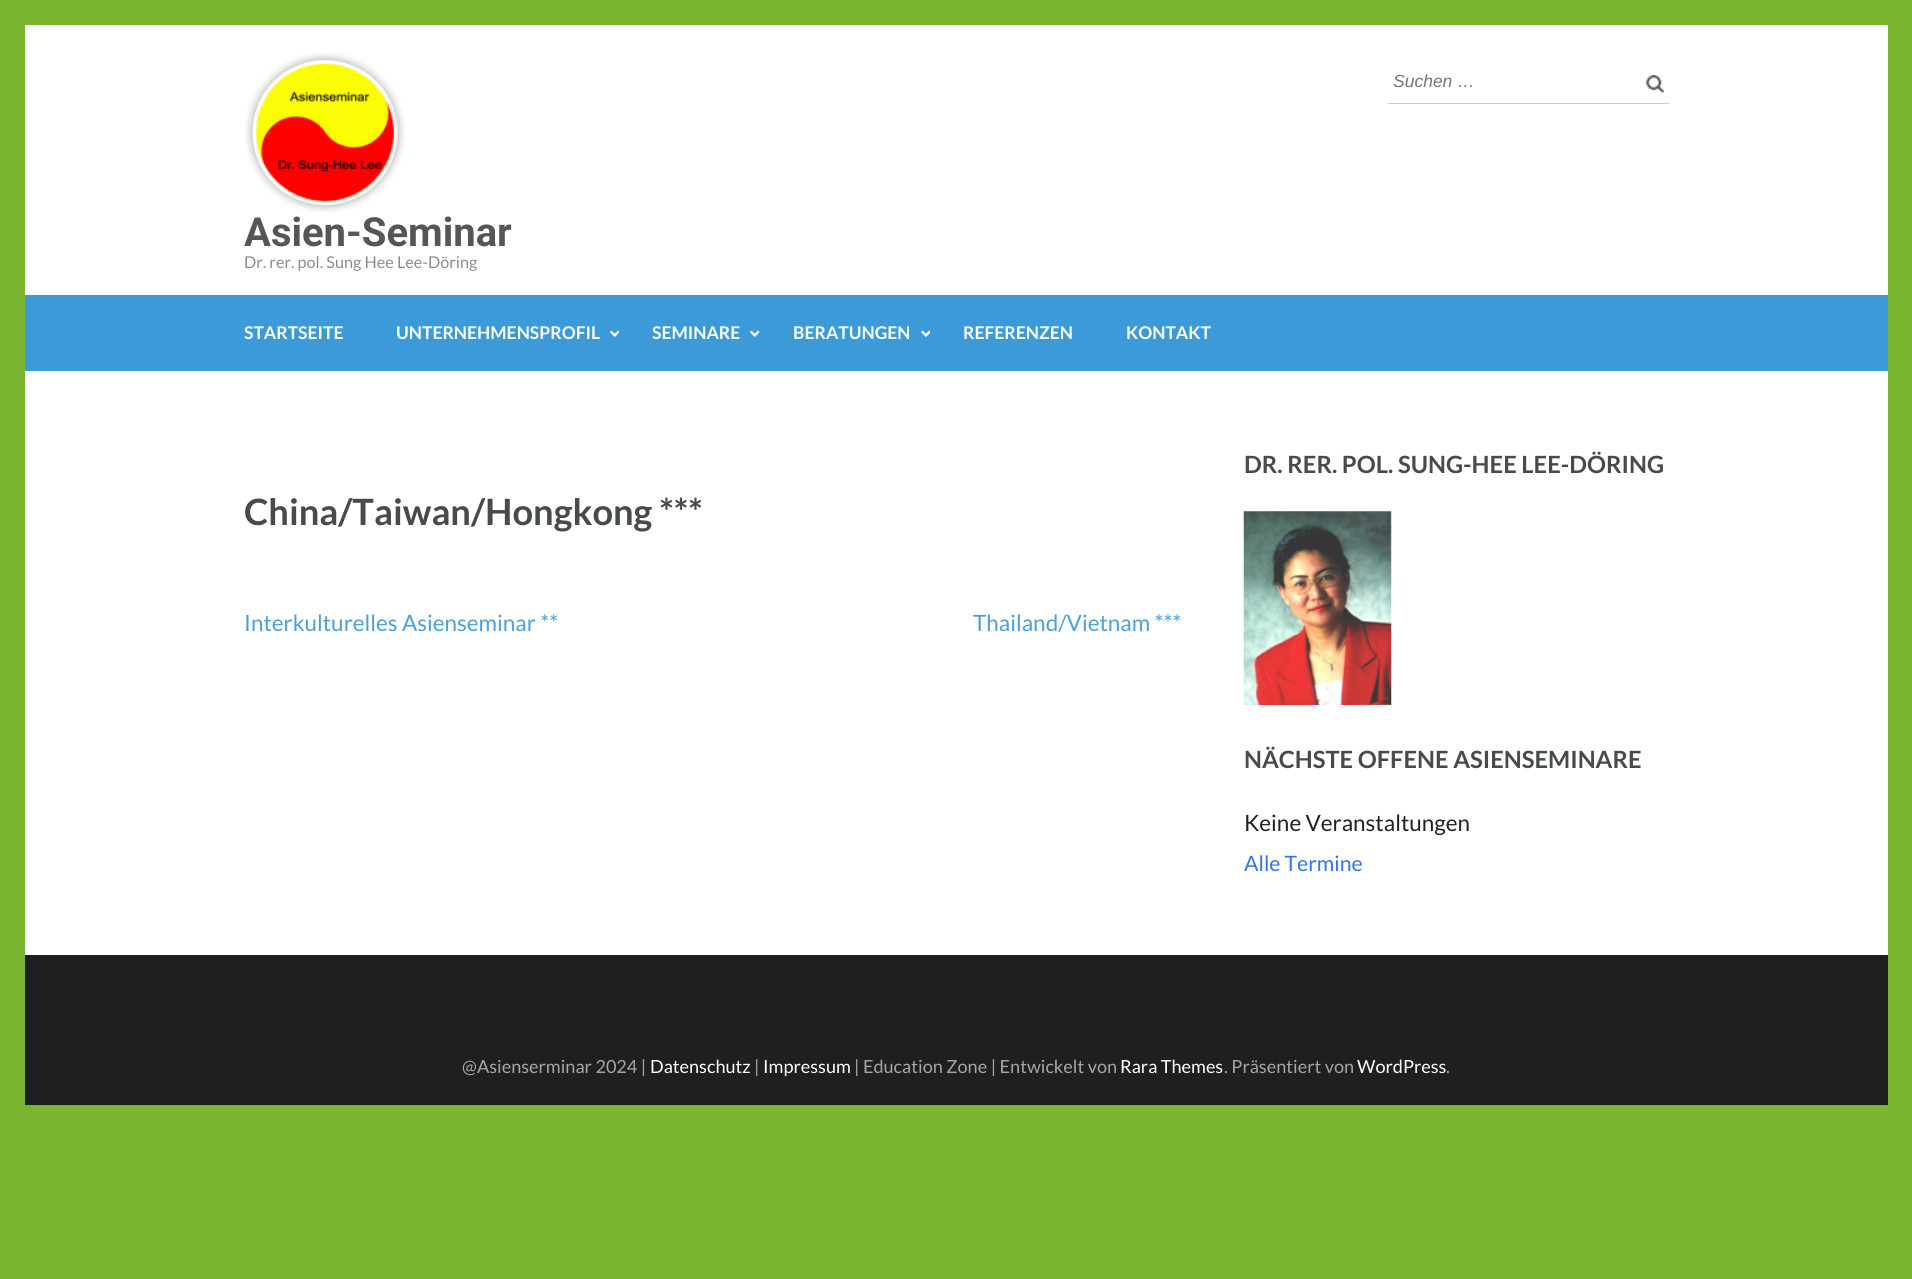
import math
import cairo

surface = cairo.ImageSurface(cairo.FORMAT_RGB24, 1912, 1279)
ctx = cairo.Context(surface)
options = cairo.FontOptions()
options.set_hint_metrics(cairo.HINT_METRICS_OFF)
options.set_hint_style(cairo.HINT_STYLE_NONE)
ctx.set_font_options(options)
ctx.set_miter_limit(4)


def picture(path, x, y, w, h):
    ctx.save()
    ctx.set_source_surface(cairo.ImageSurface.create_from_png(path), x, y)
    ctx.rectangle(x, y, w, h)
    ctx.fill()
    ctx.restore()


ctx.set_source_rgb(0.475, 0.71, 0.188)
ctx.paint()
ctx.set_source_rgb(1, 1, 1)
ctx.rectangle(25, 25, 1863, 930)
ctx.fill()
ctx.set_source_rgb(0.8, 0.8, 0.8)
ctx.rectangle(1388, 103, 281, 1)
ctx.fill()
ctx.select_font_face("Liberation Sans", cairo.FONT_SLANT_ITALIC)
ctx.set_font_size(17.5)
ctx.set_source_rgb(0.459, 0.459, 0.459)
ctx.move_to(1393, 87)
ctx.show_text("Suchen …")
picture("img1.png", 1646, 75, 18, 18)
picture("img2.png", 245, 53, 160, 159)
ctx.select_font_face("Roboto", cairo.FONT_SLANT_NORMAL, cairo.FONT_WEIGHT_BOLD)
ctx.set_font_size(40)
ctx.set_source_rgb(0.333, 0.337, 0.345)
ctx.move_to(244, 246)
ctx.show_text("Asien-Seminar")
ctx.select_font_face("Lato")
ctx.set_font_size(16.25)
ctx.set_source_rgb(0.549, 0.549, 0.549)
ctx.move_to(244, 268)
ctx.show_text("Dr. rer. pol. Sung Hee Lee-Döring")
ctx.set_source_rgb(0.231, 0.604, 0.843)
ctx.rectangle(25, 295, 1863, 76)
ctx.fill()
ctx.select_font_face("Lato", cairo.FONT_SLANT_NORMAL, cairo.FONT_WEIGHT_BOLD)
ctx.set_font_size(17.5)
ctx.set_source_rgb(1, 1, 1)
ctx.move_to(244, 339)
ctx.show_text("STARTSEITE")
ctx.move_to(396, 339)
ctx.show_text("UNTERNEHMENSPROFIL")
picture("img3.png", 610, 330, 9, 7)
ctx.move_to(652, 339)
ctx.show_text("SEMINARE")
picture("img4.png", 750, 330, 10, 7)
ctx.move_to(793, 339)
ctx.show_text("BERATUNGEN")
picture("img5.png", 921, 330, 9, 7)
ctx.move_to(963, 339)
ctx.show_text("REFERENZEN")
ctx.move_to(1126, 339)
ctx.show_text("KONTAKT")
ctx.set_font_size(36.25)
ctx.set_source_rgb(0.278, 0.294, 0.306)
ctx.move_to(244, 525)
ctx.show_text("China/Taiwan/Hongkong ***")
ctx.select_font_face("Lato")
ctx.set_font_size(22.5)
ctx.set_source_rgb(0.29, 0.627, 0.843)
ctx.move_to(244, 631)
ctx.show_text("Interkulturelles Asienseminar **")
ctx.move_to(973, 631)
ctx.show_text("Thailand/Vietnam ***")
ctx.select_font_face("Lato", cairo.FONT_SLANT_NORMAL, cairo.FONT_WEIGHT_BOLD)
ctx.set_font_size(23.75)
ctx.set_source_rgb(0.278, 0.294, 0.306)
ctx.move_to(1244, 473)
ctx.show_text("DR. RER. POL. SUNG-HEE LEE-DÖRING")
picture("img6.png", 1243, 511, 149, 194)
ctx.move_to(1244, 768)
ctx.show_text("NÄCHSTE OFFENE ASIENSEMINARE")
ctx.select_font_face("Lato")
ctx.set_font_size(22.5)
ctx.set_source_rgb(0.129, 0.129, 0.129)
ctx.move_to(1244, 831)
ctx.show_text("Keine Veranstaltungen")
ctx.set_font_size(21.25)
ctx.set_source_rgb(0.2, 0.447, 0.941)
ctx.move_to(1244, 871)
ctx.show_text("Alle Termine")
ctx.set_source_rgb(0.122, 0.122, 0.122)
ctx.rectangle(25, 955, 1863, 150)
ctx.fill()
ctx.set_font_size(18.1)
ctx.set_source_rgb(0.651, 0.651, 0.651)
ctx.move_to(462, 1073)
ctx.show_text("@Asienserminar 2024 |")
ctx.set_source_rgb(1, 1, 1)
ctx.move_to(650, 1073)
ctx.show_text("Datenschutz")
ctx.set_source_rgb(0.651, 0.651, 0.651)
ctx.move_to(754, 1073)
ctx.show_text("|")
ctx.set_source_rgb(1, 1, 1)
ctx.move_to(763, 1073)
ctx.show_text("Impressum")
ctx.set_source_rgb(0.651, 0.651, 0.651)
ctx.move_to(854, 1073)
ctx.show_text("| Education Zone | Entwickelt von")
ctx.set_source_rgb(1, 1, 1)
ctx.move_to(1120, 1073)
ctx.show_text("Rara Themes")
ctx.set_source_rgb(0.651, 0.651, 0.651)
ctx.move_to(1224, 1073)
ctx.show_text(". Präsentiert von")
ctx.set_source_rgb(1, 1, 1)
ctx.move_to(1357, 1073)
ctx.show_text("WordPress")
ctx.set_source_rgb(0.651, 0.651, 0.651)
ctx.move_to(1446, 1073)
ctx.show_text(".")
surface.write_to_png("page.png")
